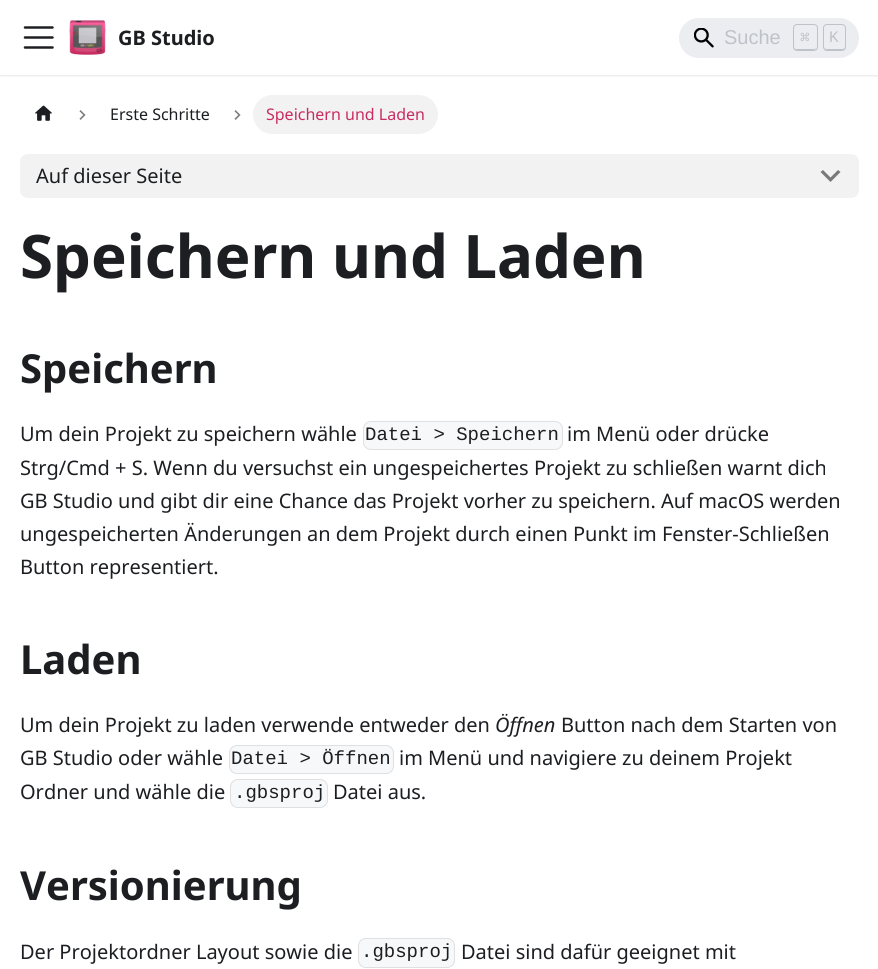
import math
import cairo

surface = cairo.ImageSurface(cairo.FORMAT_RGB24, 878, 969)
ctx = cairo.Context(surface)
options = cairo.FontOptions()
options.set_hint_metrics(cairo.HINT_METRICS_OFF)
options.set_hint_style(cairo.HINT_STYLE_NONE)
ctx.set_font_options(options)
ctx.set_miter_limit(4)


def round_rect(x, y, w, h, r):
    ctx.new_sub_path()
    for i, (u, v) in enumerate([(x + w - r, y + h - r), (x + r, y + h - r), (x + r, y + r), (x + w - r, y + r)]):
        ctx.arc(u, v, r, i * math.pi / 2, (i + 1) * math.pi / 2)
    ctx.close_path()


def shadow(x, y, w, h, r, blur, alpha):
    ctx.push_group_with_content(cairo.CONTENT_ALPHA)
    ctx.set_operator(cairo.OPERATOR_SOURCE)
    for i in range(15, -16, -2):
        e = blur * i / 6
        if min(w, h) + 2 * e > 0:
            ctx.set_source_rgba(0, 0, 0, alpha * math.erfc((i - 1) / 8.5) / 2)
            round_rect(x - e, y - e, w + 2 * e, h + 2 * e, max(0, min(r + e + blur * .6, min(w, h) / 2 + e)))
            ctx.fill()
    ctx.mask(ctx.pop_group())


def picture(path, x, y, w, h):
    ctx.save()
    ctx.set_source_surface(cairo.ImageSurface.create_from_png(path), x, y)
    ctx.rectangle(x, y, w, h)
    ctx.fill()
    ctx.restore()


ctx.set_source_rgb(1, 1, 1)
ctx.paint()
ctx.save()
ctx.rectangle(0, 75, 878, 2)
ctx.clip()
ctx.set_source_rgb(0, 0, 0)
shadow(0, 1, 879, 75, 0, 1, 0.1)
ctx.restore()
ctx.new_path()
ctx.move_to(25, 27.5)
ctx.line_to(52.5, 27.5)
ctx.move_to(25, 37.5)
ctx.line_to(52.5, 37.5)
ctx.move_to(25, 47.5)
ctx.line_to(52.5, 47.5)
ctx.set_source_rgb(0.11, 0.118, 0.129)
ctx.set_line_width(2.5)
ctx.set_line_cap(cairo.LINE_CAP_ROUND)
ctx.stroke()
picture("img1.png", 69, 20, 37, 35)
ctx.select_font_face("Noto Sans", cairo.FONT_SLANT_NORMAL, cairo.FONT_WEIGHT_BOLD)
ctx.set_font_size(20)
ctx.move_to(118, 45)
ctx.show_text("GB Studio")
ctx.set_source_rgb(0.922, 0.929, 0.941)
round_rect(679, 18, 180, 40, 20)
ctx.fill()
picture("img2.png", 694, 28, 20, 20)
ctx.select_font_face("Liberation Sans")
ctx.set_source_rgb(0.745, 0.765, 0.788)
ctx.move_to(724, 44)
ctx.show_text("Suche")
ctx.new_path()
ctx.move_to(794, 46)
ctx.curve_to(794, 50, 795.5, 50, 799.5, 50)
ctx.line_to(810.5, 50)
ctx.curve_to(814.5, 50, 816, 50, 816, 46)
ctx.curve_to(816, 48, 815, 49, 814, 49)
ctx.line_to(796, 49)
ctx.curve_to(795, 49, 794, 48, 794, 46)
ctx.close_path()
ctx.fill()
round_rect(793.5, 24.5, 24, 26, 3.5)
ctx.set_line_width(1)
ctx.set_line_cap(cairo.LINE_CAP_BUTT)
ctx.stroke()
ctx.select_font_face("DejaVu Sans Mono")
ctx.set_font_size(16)
ctx.move_to(800, 43)
ctx.show_text("⌘")
ctx.new_path()
ctx.move_to(824, 46)
ctx.curve_to(824, 50, 825.5, 50, 829, 50)
ctx.line_to(840, 50)
ctx.curve_to(843.5, 50, 845, 50, 845, 46)
ctx.curve_to(845, 48, 844, 49, 842, 49)
ctx.line_to(826, 49)
ctx.curve_to(825, 49, 824, 48, 824, 46)
ctx.close_path()
ctx.fill()
round_rect(823.5, 24.5, 22, 26, 3.5)
ctx.stroke()
ctx.select_font_face("Liberation Mono")
ctx.move_to(829, 42)
ctx.show_text("K")
picture("img3.png", 35, 105, 17, 16)
picture("img4.png", 79, 110, 7, 10)
ctx.select_font_face("Noto Sans")
ctx.set_source_rgb(0.11, 0.118, 0.129)
ctx.move_to(110, 120)
ctx.show_text("Erste Schritte")
picture("img4.png", 234, 110, 7, 10)
ctx.set_source_rgb(0.949, 0.949, 0.949)
round_rect(253, 95, 185, 39, 19.5)
ctx.fill()
ctx.set_source_rgb(0.788, 0.173, 0.38)
ctx.move_to(266, 120)
ctx.show_text("Speichern und Laden")
ctx.set_source_rgb(0.949, 0.949, 0.949)
round_rect(20, 154, 839, 44, 8)
ctx.fill()
ctx.set_font_size(20)
ctx.set_source_rgb(0.11, 0.118, 0.129)
ctx.move_to(36, 183)
ctx.show_text("Auf dieser Seite")
ctx.set_source_rgb(0.475, 0.475, 0.475)
ctx.new_path()
ctx.move_to(838, 170)
ctx.line_to(830.5, 177.5)
ctx.line_to(823, 170)
ctx.line_to(820.5, 172)
ctx.line_to(830.5, 182)
ctx.line_to(840.5, 172)
ctx.close_path()
ctx.fill()
ctx.select_font_face("Noto Sans", cairo.FONT_SLANT_NORMAL, cairo.FONT_WEIGHT_BOLD)
ctx.set_font_size(60)
ctx.set_source_rgb(0.11, 0.118, 0.129)
ctx.move_to(20, 278)
ctx.show_text("Speichern und Laden")
ctx.set_font_size(40)
ctx.move_to(20, 383)
ctx.show_text("Speichern")
ctx.select_font_face("Noto Sans")
ctx.set_font_size(20)
ctx.move_to(20, 441)
ctx.show_text("Um dein Projekt zu speichern wähle")
ctx.set_source_rgb(0.965, 0.969, 0.973)
round_rect(363, 421, 200, 29, 8)
ctx.fill()
round_rect(363.5, 421.5, 199, 28, 7.5)
ctx.set_source_rgba(0, 0, 0, 0.1)
ctx.stroke()
ctx.select_font_face("Liberation Mono")
ctx.set_font_size(19)
ctx.set_source_rgb(0.11, 0.118, 0.129)
ctx.move_to(365, 440)
ctx.show_text("Datei > Speichern")
ctx.select_font_face("Noto Sans")
ctx.set_font_size(20)
ctx.move_to(567, 441)
ctx.show_text("im Menü oder drücke")
ctx.move_to(20, 475)
ctx.show_text("Strg/Cmd + S. Wenn du versuchst ein ungespeichertes Projekt zu schließen warnt dich")
ctx.move_to(20, 508)
ctx.show_text("GB Studio und gibt dir eine Chance das Projekt vorher zu speichern. Auf macOS werden")
ctx.move_to(20, 541)
ctx.show_text("ungespeicherten Änderungen an dem Projekt durch einen Punkt im Fenster-Schließen")
ctx.move_to(20, 574)
ctx.show_text("Button representiert.")
ctx.select_font_face("Noto Sans", cairo.FONT_SLANT_NORMAL, cairo.FONT_WEIGHT_BOLD)
ctx.set_font_size(40)
ctx.move_to(20, 674)
ctx.show_text("Laden")
ctx.select_font_face("Noto Sans")
ctx.set_font_size(20)
ctx.move_to(20, 732)
ctx.show_text("Um dein Projekt zu laden verwende entweder den")
ctx.select_font_face("Noto Sans", cairo.FONT_SLANT_ITALIC)
ctx.move_to(495, 732)
ctx.show_text("Öffnen")
ctx.select_font_face("Noto Sans")
ctx.move_to(561, 732)
ctx.show_text("Button nach dem Starten von")
ctx.move_to(20, 765)
ctx.show_text("GB Studio oder wähle")
ctx.set_source_rgb(0.965, 0.969, 0.973)
round_rect(229, 745, 165, 29, 8)
ctx.fill()
round_rect(229.5, 745.5, 164, 28, 7.5)
ctx.set_source_rgba(0, 0, 0, 0.1)
ctx.stroke()
ctx.select_font_face("Liberation Mono")
ctx.set_font_size(19)
ctx.set_source_rgb(0.11, 0.118, 0.129)
ctx.move_to(231, 764)
ctx.show_text("Datei > Öffnen")
ctx.select_font_face("Noto Sans")
ctx.set_font_size(20)
ctx.move_to(399, 765)
ctx.show_text("im Menü und navigiere zu deinem Projekt")
ctx.move_to(20, 799)
ctx.show_text("Ordner und wähle die")
ctx.set_source_rgb(0.965, 0.969, 0.973)
round_rect(230, 779, 98, 29, 8)
ctx.fill()
round_rect(230.5, 779.5, 97, 28, 7.5)
ctx.set_source_rgba(0, 0, 0, 0.1)
ctx.stroke()
ctx.select_font_face("Liberation Mono")
ctx.set_font_size(19)
ctx.set_source_rgb(0.11, 0.118, 0.129)
ctx.move_to(234, 798)
ctx.show_text(".gbsproj")
ctx.select_font_face("Noto Sans")
ctx.set_font_size(20)
ctx.move_to(333, 799)
ctx.show_text("Datei aus.")
ctx.select_font_face("Noto Sans", cairo.FONT_SLANT_NORMAL, cairo.FONT_WEIGHT_BOLD)
ctx.set_font_size(40)
ctx.move_to(20, 900)
ctx.show_text("Versionierung")
ctx.select_font_face("Noto Sans")
ctx.set_font_size(20)
ctx.move_to(20, 959)
ctx.show_text("Der Projektordner Layout sowie die")
ctx.set_source_rgb(0.965, 0.969, 0.973)
round_rect(358, 938, 97, 30, 8)
ctx.fill()
round_rect(358.5, 938.5, 96, 29, 7.5)
ctx.set_source_rgba(0, 0, 0, 0.1)
ctx.stroke()
ctx.select_font_face("Liberation Mono")
ctx.set_font_size(19)
ctx.set_source_rgb(0.11, 0.118, 0.129)
ctx.move_to(361, 957)
ctx.show_text(".gbsproj")
ctx.select_font_face("Noto Sans")
ctx.set_font_size(20)
ctx.move_to(461, 959)
ctx.show_text("Datei sind dafür geeignet mit")
surface.write_to_png("page.png")
